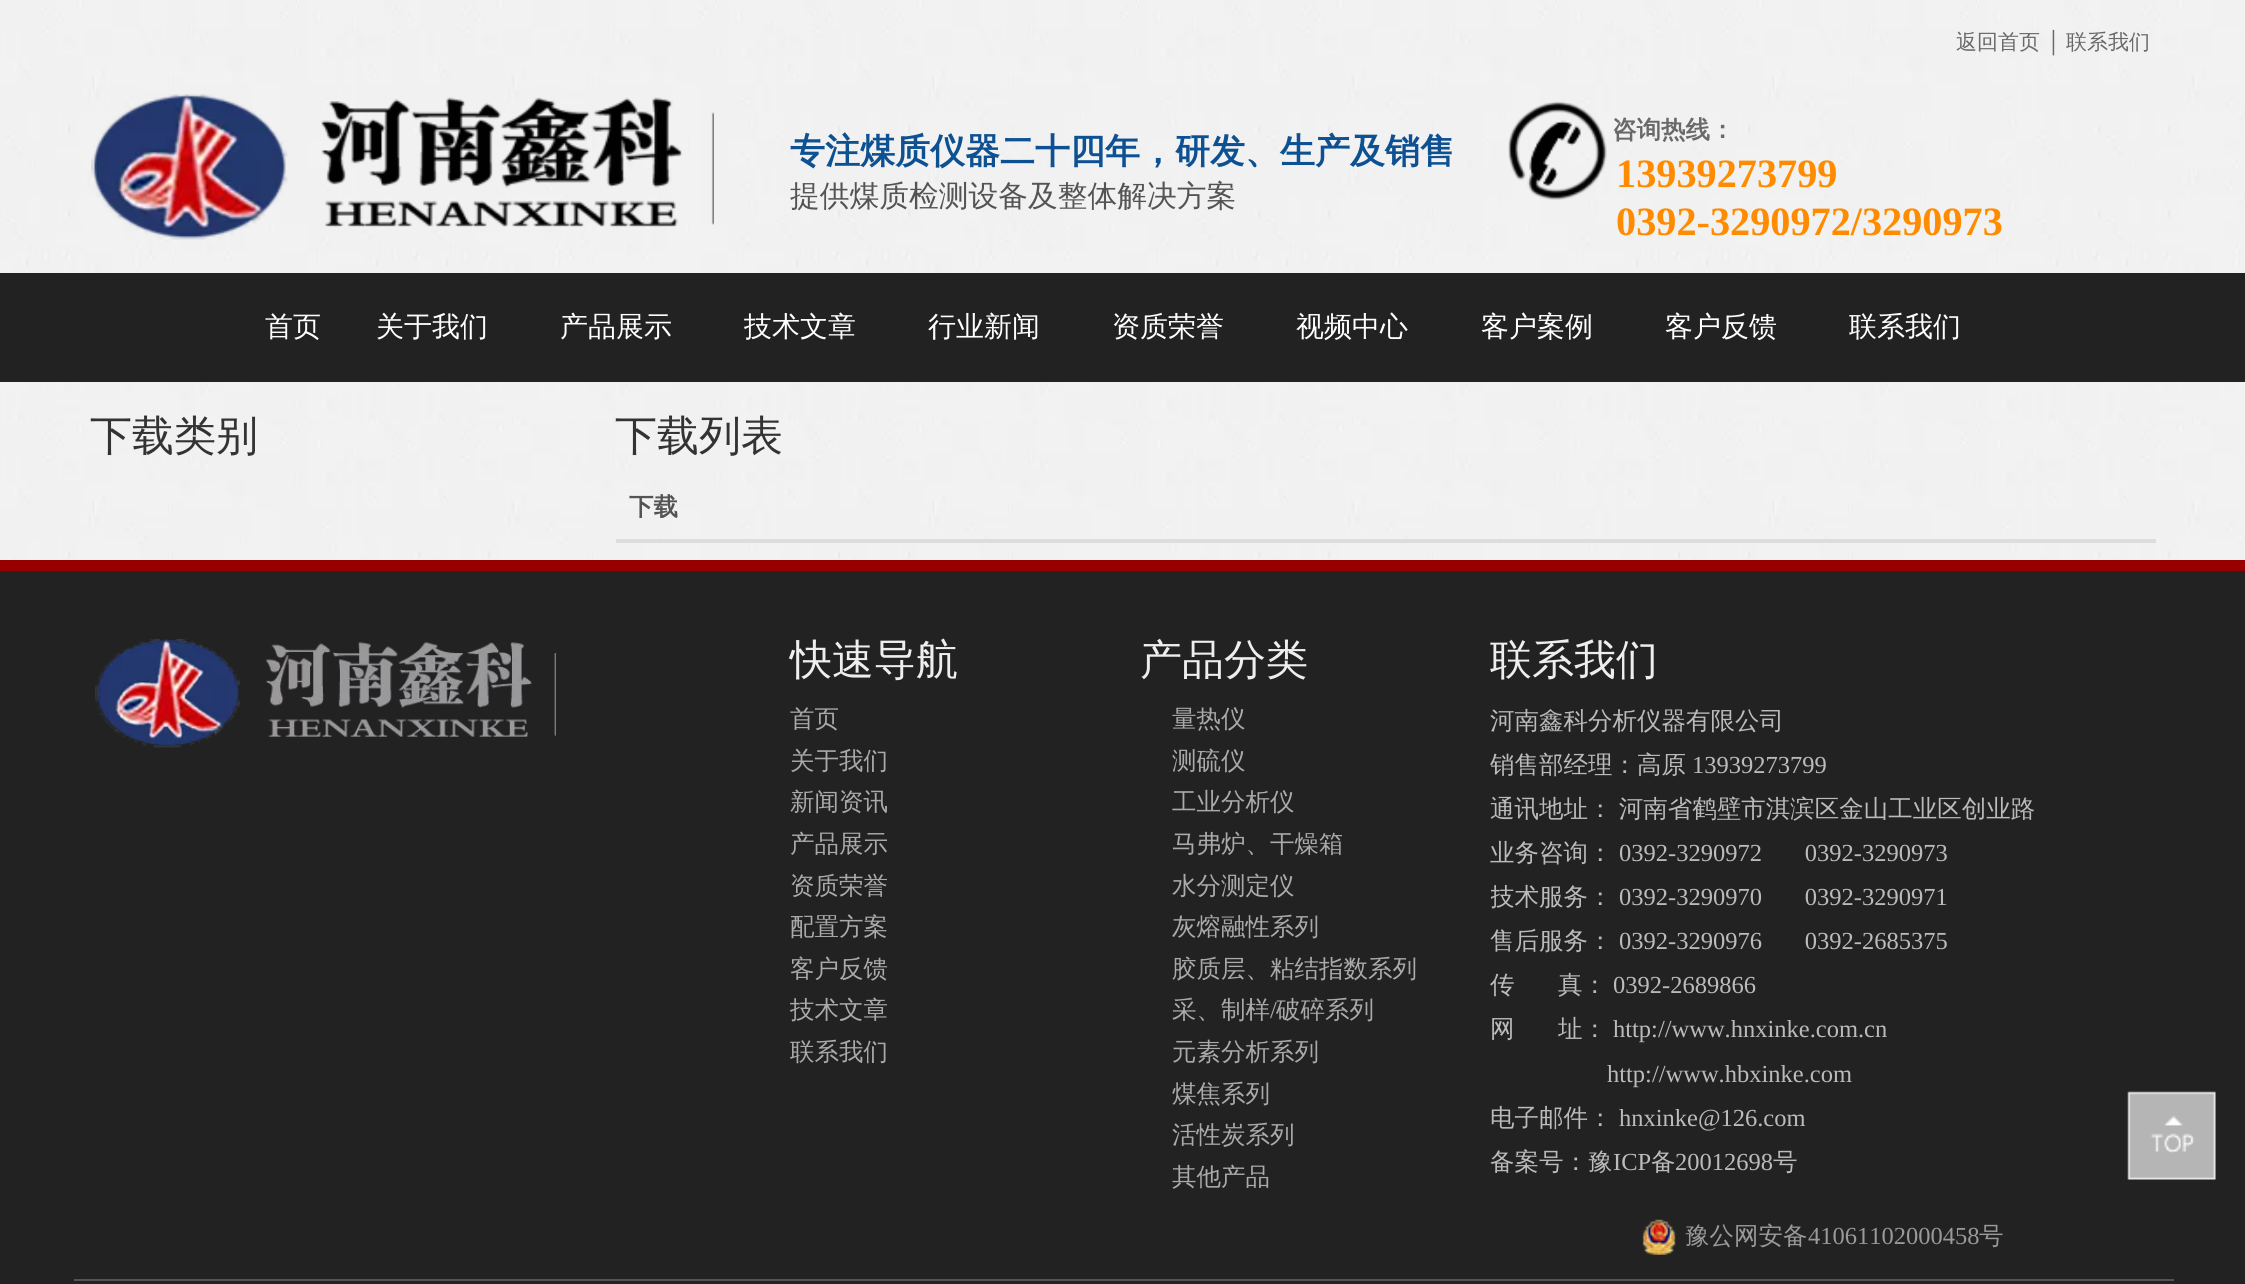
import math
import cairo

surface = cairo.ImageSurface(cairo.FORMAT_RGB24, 2245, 1284)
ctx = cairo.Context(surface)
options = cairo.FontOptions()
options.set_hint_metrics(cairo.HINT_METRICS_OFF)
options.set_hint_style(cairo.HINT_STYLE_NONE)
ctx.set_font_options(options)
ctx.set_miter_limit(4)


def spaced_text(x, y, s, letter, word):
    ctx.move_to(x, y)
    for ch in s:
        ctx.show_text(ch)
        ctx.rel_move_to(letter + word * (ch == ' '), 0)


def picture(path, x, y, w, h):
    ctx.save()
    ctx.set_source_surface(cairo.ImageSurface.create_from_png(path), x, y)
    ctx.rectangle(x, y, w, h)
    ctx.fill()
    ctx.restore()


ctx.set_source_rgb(1, 1, 1)
ctx.paint()
picture("img1.png", 0, 0, 2245, 560)
ctx.select_font_face("WenQuanYi Zen Hei Medium")
ctx.set_font_size(21)
ctx.set_source_rgb(0.412, 0.412, 0.412)
ctx.move_to(1956, 49)
ctx.show_text("返回首页")
ctx.select_font_face("Liberation Serif")
ctx.move_to(2046, 49)
ctx.show_text("│")
ctx.select_font_face("WenQuanYi Zen Hei Medium")
ctx.move_to(2066, 49)
ctx.show_text("联系我们")
picture("img2.png", 91, 94, 623, 146)
ctx.select_font_face("WenQuanYi Zen Hei", cairo.FONT_SLANT_NORMAL, cairo.FONT_WEIGHT_BOLD)
ctx.set_font_size(35)
ctx.set_source_rgb(0.051, 0.318, 0.576)
ctx.move_to(790, 163)
ctx.show_text("专注煤质仪器二十四年，研发、生产及销售")
ctx.select_font_face("WenQuanYi Zen Hei Medium")
ctx.set_font_size(29.75)
ctx.set_source_rgb(0.329, 0.329, 0.329)
ctx.move_to(790, 206)
ctx.show_text("提供煤质检测设备及整体解决方案")
picture("img3.png", 1508, 101, 99, 99)
ctx.select_font_face("WenQuanYi Zen Hei", cairo.FONT_SLANT_NORMAL, cairo.FONT_WEIGHT_BOLD)
ctx.set_font_size(24.5)
ctx.set_source_rgb(0.412, 0.412, 0.412)
ctx.move_to(1612, 138)
ctx.show_text("咨询热线：")
ctx.select_font_face("Liberation Serif", cairo.FONT_SLANT_NORMAL, cairo.FONT_WEIGHT_BOLD)
ctx.set_font_size(40.25)
ctx.set_source_rgb(1, 0.549, 0)
ctx.move_to(1616, 187)
ctx.show_text("13939273799")
ctx.move_to(1616, 235)
ctx.show_text("0392-3290972/3290973")
ctx.set_source_rgb(0.133, 0.133, 0.133)
ctx.rectangle(0, 273, 2245, 109)
ctx.fill()
ctx.select_font_face("WenQuanYi Zen Hei Medium")
ctx.set_font_size(28)
ctx.set_source_rgb(1, 1, 1)
ctx.move_to(265, 336)
ctx.show_text("首页")
ctx.move_to(376, 336)
ctx.show_text("关于我们")
ctx.move_to(560, 336)
ctx.show_text("产品展示")
ctx.move_to(744, 336)
ctx.show_text("技术文章")
ctx.move_to(928, 336)
ctx.show_text("行业新闻")
ctx.move_to(1112, 336)
ctx.show_text("资质荣誉")
ctx.move_to(1296, 336)
ctx.show_text("视频中心")
ctx.move_to(1481, 336)
ctx.show_text("客户案例")
ctx.move_to(1665, 336)
ctx.show_text("客户反馈")
ctx.move_to(1849, 336)
ctx.show_text("联系我们")
ctx.set_font_size(42)
ctx.set_source_rgb(0.2, 0.2, 0.2)
ctx.move_to(90, 450)
ctx.show_text("下载类别")
ctx.move_to(615, 450)
ctx.show_text("下载列表")
ctx.set_source_rgb(0.867, 0.867, 0.867)
ctx.rectangle(616, 539, 1540, 4)
ctx.fill()
ctx.select_font_face("WenQuanYi Zen Hei", cairo.FONT_SLANT_NORMAL, cairo.FONT_WEIGHT_BOLD)
ctx.set_font_size(24.5)
ctx.set_source_rgb(0.329, 0.329, 0.329)
ctx.move_to(629, 515)
ctx.show_text("下载")
ctx.set_source_rgb(0.133, 0.133, 0.133)
ctx.rectangle(0, 571, 2245, 713)
ctx.fill()
ctx.set_source_rgb(0.596, 0, 0)
ctx.rectangle(0, 560, 2245, 11)
ctx.fill()
picture("img4.png", 95, 639, 461, 109)
ctx.select_font_face("WenQuanYi Zen Hei Medium")
ctx.set_font_size(42)
ctx.set_source_rgb(0.933, 0.933, 0.933)
ctx.move_to(790, 674)
ctx.show_text("快速导航")
ctx.set_font_size(24.5)
ctx.set_source_rgb(0.667, 0.667, 0.667)
ctx.move_to(790, 727)
ctx.show_text("首页")
ctx.move_to(790, 769)
ctx.show_text("关于我们")
ctx.move_to(790, 810)
ctx.show_text("新闻资讯")
ctx.move_to(790, 852)
ctx.show_text("产品展示")
ctx.move_to(790, 894)
ctx.show_text("资质荣誉")
ctx.move_to(790, 935)
ctx.show_text("配置方案")
ctx.move_to(790, 977)
ctx.show_text("客户反馈")
ctx.move_to(790, 1018)
ctx.show_text("技术文章")
ctx.move_to(790, 1060)
ctx.show_text("联系我们")
ctx.set_font_size(42)
ctx.set_source_rgb(0.933, 0.933, 0.933)
ctx.move_to(1140, 674)
ctx.show_text("产品分类")
ctx.set_font_size(24.5)
ctx.set_source_rgb(0.667, 0.667, 0.667)
ctx.move_to(1172, 727)
ctx.show_text("量热仪")
ctx.move_to(1172, 769)
ctx.show_text("测硫仪")
ctx.move_to(1172, 810)
ctx.show_text("工业分析仪")
ctx.move_to(1172, 852)
ctx.show_text("马弗炉、干燥箱")
ctx.move_to(1172, 894)
ctx.show_text("水分测定仪")
ctx.move_to(1172, 935)
ctx.show_text("灰熔融性系列")
ctx.move_to(1172, 977)
ctx.show_text("胶质层、粘结指数系列")
ctx.move_to(1172, 1018)
ctx.show_text("采、制样")
ctx.select_font_face("Liberation Serif")
ctx.move_to(1270, 1018)
ctx.show_text("/")
ctx.select_font_face("WenQuanYi Zen Hei Medium")
ctx.move_to(1276, 1018)
ctx.show_text("破碎系列")
ctx.move_to(1172, 1060)
ctx.show_text("元素分析系列")
ctx.move_to(1172, 1102)
ctx.show_text("煤焦系列")
ctx.move_to(1172, 1143)
ctx.show_text("活性炭系列")
ctx.move_to(1172, 1185)
ctx.show_text("其他产品")
ctx.set_font_size(42)
ctx.set_source_rgb(0.933, 0.933, 0.933)
ctx.move_to(1490, 674)
ctx.show_text("联系我们")
ctx.set_font_size(24.5)
ctx.set_source_rgb(0.733, 0.733, 0.733)
ctx.move_to(1490, 729)
ctx.show_text("河南鑫科分析仪器有限公司")
ctx.move_to(1490, 773)
ctx.show_text("销售部经理：高原")
ctx.select_font_face("Liberation Serif")
ctx.move_to(1692, 773)
ctx.show_text("13939273799")
ctx.select_font_face("WenQuanYi Zen Hei Medium")
spaced_text(1490, 817, "通讯地址： 河南省鹤壁市淇滨区金山工业区创业路", 0, -1)
ctx.move_to(1490, 861)
ctx.show_text("业务咨询：")
ctx.select_font_face("Liberation Serif")
ctx.move_to(1619, 861)
ctx.show_text("0392-3290972       0392-3290973")
ctx.save()
ctx.rectangle(1491, 698, 665, 487)
ctx.clip()
ctx.select_font_face("WenQuanYi Zen Hei Medium")
ctx.move_to(1490, 905)
ctx.show_text("技术服务：")
ctx.restore()
ctx.move_to(1619, 905)
ctx.show_text("0392-3290970       0392-3290971")
ctx.select_font_face("WenQuanYi Zen Hei Medium")
ctx.move_to(1490, 949)
ctx.show_text("售后服务：")
ctx.select_font_face("Liberation Serif")
ctx.move_to(1619, 949)
ctx.show_text("0392-3290976       0392-2685375")
ctx.select_font_face("WenQuanYi Zen Hei Medium")
ctx.move_to(1490, 993)
ctx.show_text("传")
ctx.move_to(1558, 993)
ctx.show_text("真：")
ctx.select_font_face("Liberation Serif")
ctx.move_to(1613, 993)
ctx.show_text("0392-2689866")
ctx.select_font_face("WenQuanYi Zen Hei Medium")
ctx.move_to(1490, 1037)
ctx.show_text("网")
ctx.move_to(1558, 1037)
ctx.show_text("址：")
ctx.select_font_face("Liberation Serif")
ctx.move_to(1613, 1037)
ctx.show_text("http://www.hnxinke.com.cn")
ctx.move_to(1607, 1082)
ctx.show_text("http://www.hbxinke.com")
ctx.select_font_face("WenQuanYi Zen Hei Medium")
ctx.move_to(1490, 1126)
ctx.show_text("电子邮件：")
ctx.select_font_face("Liberation Serif")
ctx.move_to(1619, 1126)
ctx.show_text("hnxinke@126.com")
ctx.select_font_face("WenQuanYi Zen Hei Medium")
ctx.move_to(1490, 1170)
ctx.show_text("备案号：豫")
ctx.select_font_face("Liberation Serif")
ctx.move_to(1613, 1170)
ctx.show_text("ICP")
ctx.select_font_face("WenQuanYi Zen Hei Medium")
ctx.move_to(1651, 1170)
ctx.show_text("备")
ctx.select_font_face("Liberation Serif")
ctx.move_to(1675, 1170)
ctx.show_text("20012698")
ctx.select_font_face("WenQuanYi Zen Hei Medium")
ctx.move_to(1773, 1170)
ctx.show_text("号")
picture("img5.png", 1642, 1219, 34, 36)
ctx.set_source_rgb(0.6, 0.6, 0.6)
ctx.move_to(1685, 1244)
ctx.show_text("豫公网安备")
ctx.select_font_face("Liberation Serif")
ctx.move_to(1808, 1244)
ctx.show_text("41061102000458")
ctx.select_font_face("WenQuanYi Zen Hei Medium")
ctx.move_to(1979, 1244)
ctx.show_text("号")
ctx.set_source_rgb(0.325, 0.325, 0.325)
ctx.rectangle(74, 1279, 2100, 2)
ctx.fill()
picture("img6.png", 2127, 1091, 89, 89)
surface.write_to_png("page.png")
